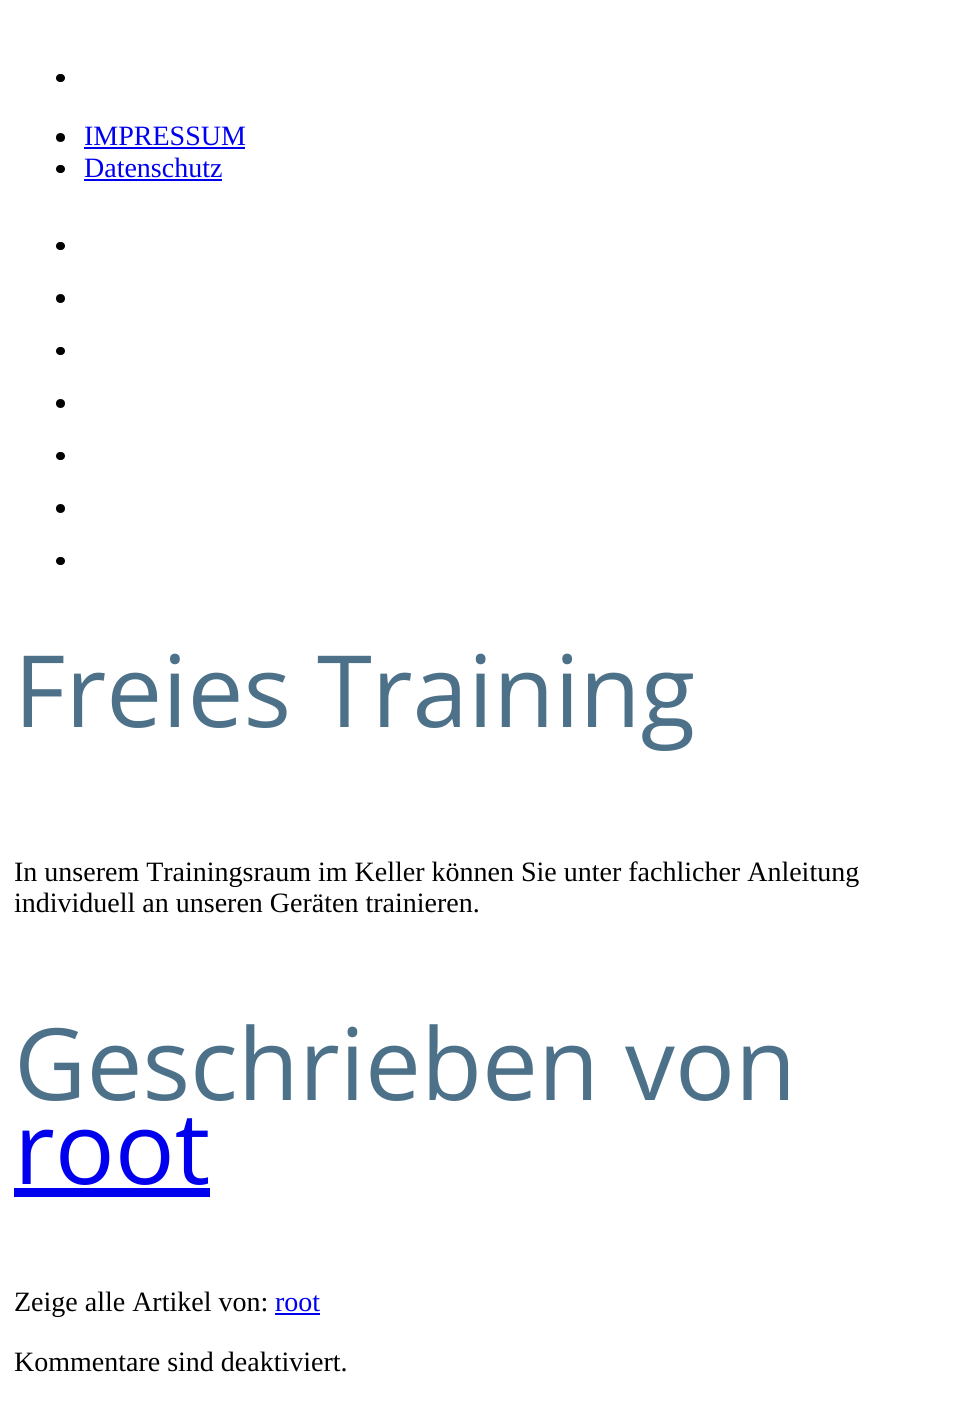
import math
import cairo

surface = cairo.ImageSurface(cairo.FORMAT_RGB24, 960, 1423)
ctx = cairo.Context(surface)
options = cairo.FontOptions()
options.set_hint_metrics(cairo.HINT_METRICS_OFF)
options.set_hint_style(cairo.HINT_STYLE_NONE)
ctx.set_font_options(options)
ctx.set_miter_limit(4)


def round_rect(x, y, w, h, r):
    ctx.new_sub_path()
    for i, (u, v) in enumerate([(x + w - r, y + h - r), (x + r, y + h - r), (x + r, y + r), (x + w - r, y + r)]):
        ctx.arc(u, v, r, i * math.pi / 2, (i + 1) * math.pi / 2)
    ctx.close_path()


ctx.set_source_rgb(1, 1, 1)
ctx.paint()
ctx.set_source_rgb(0, 0, 0)
round_rect(56, 74, 9, 8, 4)
ctx.fill()
ctx.arc(60.5, 137.5, 4.5, 0, 2 * math.pi)
ctx.fill()
ctx.select_font_face("Liberation Serif")
ctx.set_font_size(28)
ctx.set_source_rgb(0, 0, 0.933)
ctx.move_to(84, 145)
ctx.show_text("IMPRESSUM")
ctx.rectangle(84, 147, 161, 2)
ctx.fill()
ctx.set_source_rgb(0, 0, 0)
round_rect(56, 165, 9, 8, 4)
ctx.fill()
ctx.set_source_rgb(0, 0, 0.933)
ctx.move_to(84, 177)
ctx.show_text("Datenschutz")
ctx.rectangle(84, 179, 138, 2)
ctx.fill()
ctx.set_source_rgb(0, 0, 0)
round_rect(56, 242, 9, 8, 4)
ctx.fill()
ctx.arc(60.5, 298.5, 4.5, 0, 2 * math.pi)
ctx.fill()
round_rect(56, 347, 9, 8, 4)
ctx.fill()
ctx.arc(60.5, 403.5, 4.5, 0, 2 * math.pi)
ctx.fill()
round_rect(56, 452, 9, 8, 4)
ctx.fill()
ctx.arc(60.5, 508.5, 4.5, 0, 2 * math.pi)
ctx.fill()
round_rect(56, 557, 9, 8, 4)
ctx.fill()
ctx.select_font_face("Open Sans")
ctx.set_font_size(99.75)
ctx.set_source_rgb(0.298, 0.443, 0.537)
ctx.move_to(14, 727)
ctx.show_text("Freies Training")
ctx.select_font_face("Liberation Serif")
ctx.set_font_size(28)
ctx.set_source_rgb(0, 0, 0)
ctx.move_to(14, 881)
ctx.show_text("In unserem Trainingsraum im Keller können Sie unter fachlicher Anleitung")
ctx.move_to(14, 912)
ctx.show_text("individuell an unseren Geräten trainieren.")
ctx.select_font_face("Open Sans")
ctx.set_font_size(99.75)
ctx.set_source_rgb(0.298, 0.443, 0.537)
ctx.move_to(14, 1100)
ctx.show_text("Geschrieben von")
ctx.set_source_rgb(0, 0, 0.933)
ctx.move_to(14, 1184)
ctx.show_text("root")
ctx.rectangle(14, 1188, 196, 9)
ctx.fill()
ctx.select_font_face("Liberation Serif")
ctx.set_font_size(28)
ctx.set_source_rgb(0, 0, 0)
ctx.move_to(14, 1311)
ctx.show_text("Zeige alle Artikel von:")
ctx.set_source_rgb(0, 0, 0.933)
ctx.move_to(275, 1311)
ctx.show_text("root")
ctx.rectangle(275, 1313, 45, 2)
ctx.fill()
ctx.set_source_rgb(0, 0, 0)
ctx.move_to(14, 1371)
ctx.show_text("Kommentare sind deaktiviert.")
surface.write_to_png("page.png")
